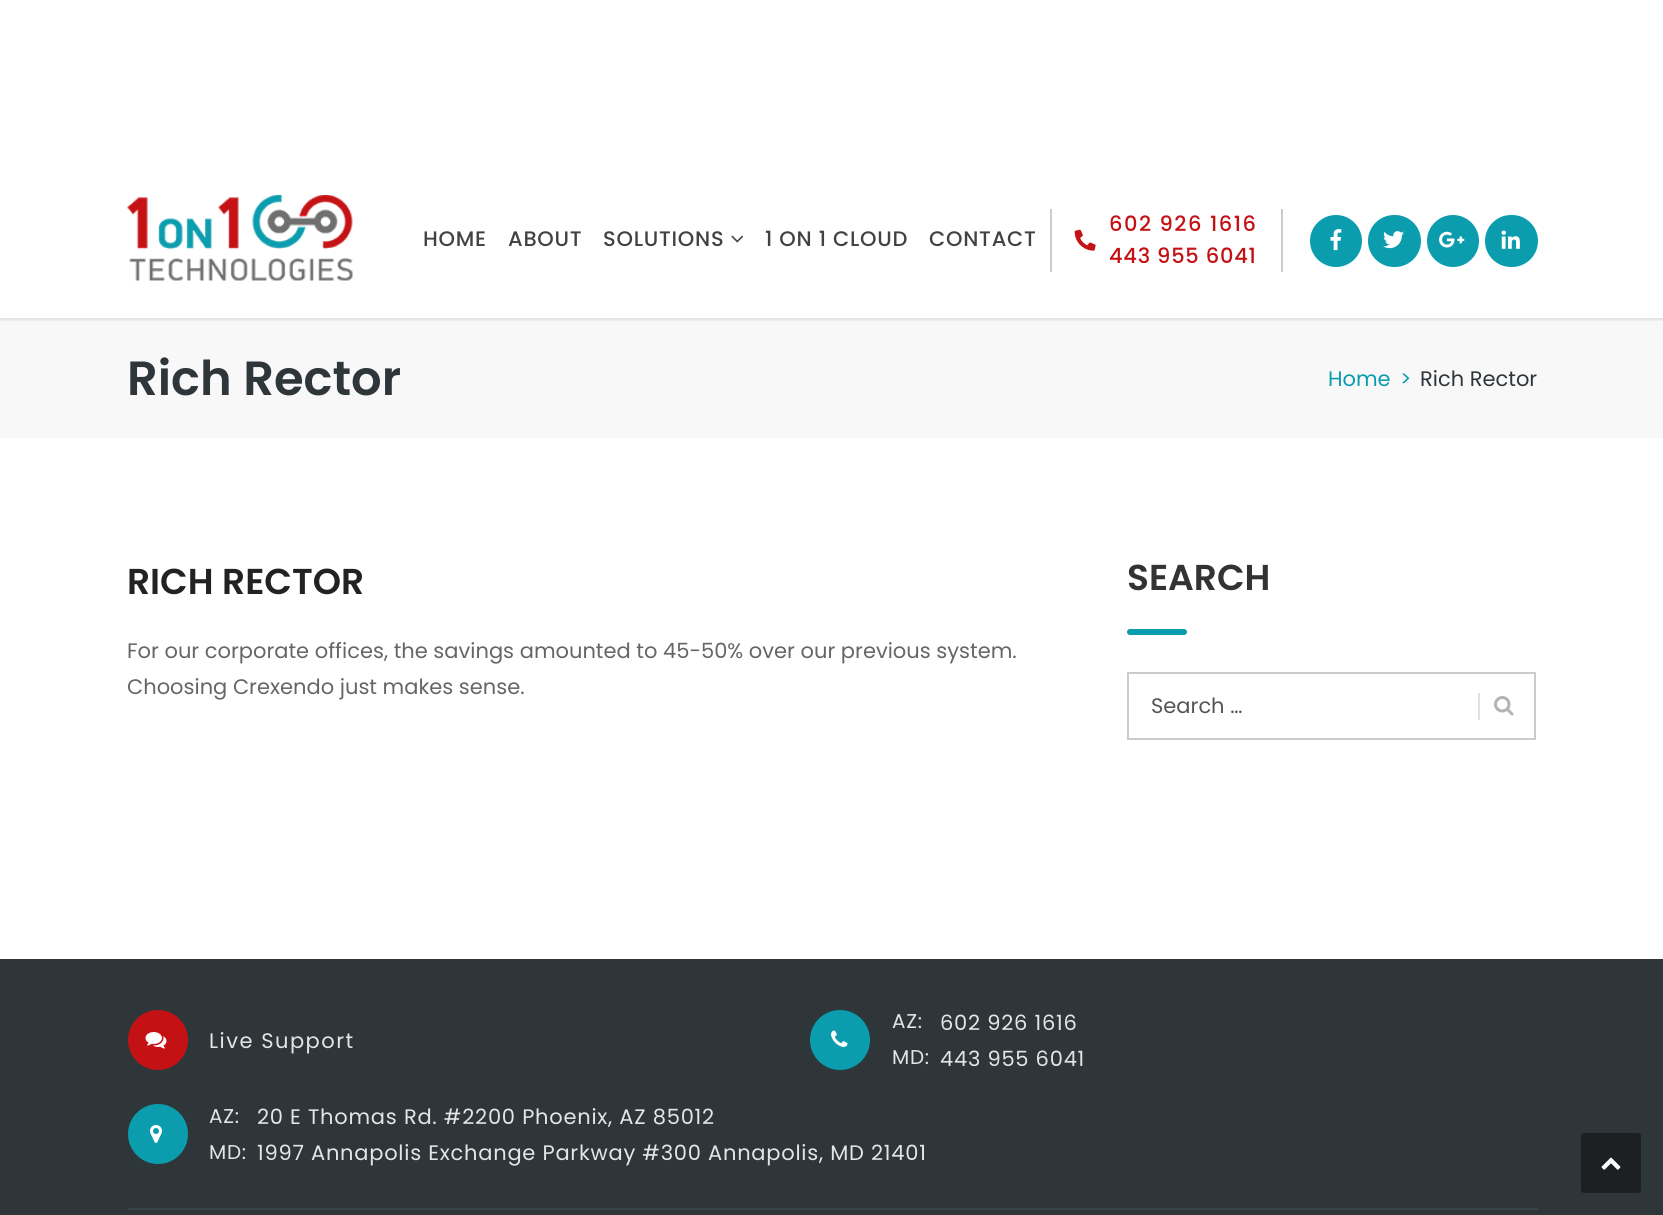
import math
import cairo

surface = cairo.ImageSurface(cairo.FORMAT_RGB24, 1663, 1215)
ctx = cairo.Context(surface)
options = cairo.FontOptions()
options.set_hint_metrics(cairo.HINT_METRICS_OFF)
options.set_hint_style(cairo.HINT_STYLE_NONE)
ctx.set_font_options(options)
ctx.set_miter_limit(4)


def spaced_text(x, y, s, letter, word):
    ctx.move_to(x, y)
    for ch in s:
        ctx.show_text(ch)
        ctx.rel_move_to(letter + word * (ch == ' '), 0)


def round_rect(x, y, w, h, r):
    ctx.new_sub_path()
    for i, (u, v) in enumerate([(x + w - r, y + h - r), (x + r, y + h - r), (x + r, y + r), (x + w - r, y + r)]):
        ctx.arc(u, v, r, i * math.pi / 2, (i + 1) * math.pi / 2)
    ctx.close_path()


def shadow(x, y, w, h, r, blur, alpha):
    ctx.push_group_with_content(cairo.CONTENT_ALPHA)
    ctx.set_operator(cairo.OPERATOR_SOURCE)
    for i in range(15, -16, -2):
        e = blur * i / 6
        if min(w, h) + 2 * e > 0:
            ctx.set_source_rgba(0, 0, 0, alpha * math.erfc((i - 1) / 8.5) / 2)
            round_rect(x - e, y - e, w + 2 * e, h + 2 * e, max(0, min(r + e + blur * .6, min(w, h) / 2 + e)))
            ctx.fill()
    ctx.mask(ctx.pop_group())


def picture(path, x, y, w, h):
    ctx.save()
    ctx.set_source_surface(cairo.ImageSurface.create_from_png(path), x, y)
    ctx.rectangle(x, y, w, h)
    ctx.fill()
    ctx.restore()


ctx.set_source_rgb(1, 1, 1)
ctx.paint()
ctx.set_source_rgb(0.969, 0.969, 0.969)
ctx.rectangle(0, 318, 1663, 120)
ctx.fill()
ctx.save()
ctx.rectangle(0, 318, 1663, 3)
ctx.clip()
ctx.set_source_rgb(0, 0, 0)
shadow(0, 161, 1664, 159, 0, 1.5, 0.1)
ctx.restore()
picture("img1.png", 127, 195, 226, 86)
ctx.select_font_face("Poppins Medium")
ctx.set_font_size(21)
ctx.set_source_rgb(0.259, 0.259, 0.259)
spaced_text(423, 246, "HOME", 0.75, 0)
spaced_text(508, 246, "ABOUT", 0.75, 0)
spaced_text(603, 246, "SOLUTIONS", 0.75, 0)
picture("img2.png", 731, 235, 13, 8)
spaced_text(765, 246, "1 ON 1 CLOUD", 0.75, 0)
spaced_text(929, 246, "CONTACT", 0.75, 0)
ctx.set_source_rgb(0.8, 0.8, 0.8)
ctx.rectangle(1281, 209, 2, 63)
ctx.fill()
ctx.rectangle(1050, 209, 2, 63)
ctx.fill()
picture("img3.png", 1074, 229, 22, 22)
ctx.set_source_rgb(0.769, 0.071, 0.082)
spaced_text(1109, 231, "602 926 1616", 1.5, 0)
spaced_text(1109, 263, "443 955 6041", 0.75, 0)
ctx.set_source_rgb(0.043, 0.616, 0.678)
ctx.new_path()
ctx.arc(1336, 241, 26, 0, 2 * math.pi)
ctx.fill()
picture("img4.png", 1330, 229, 12, 22)
round_rect(1368, 215, 53, 52, 26)
ctx.fill()
picture("img5.png", 1383, 231, 21, 18)
ctx.arc(1453, 241, 26, 0, 2 * math.pi)
ctx.fill()
picture("img6.png", 1439, 231, 26, 17)
round_rect(1485, 215, 53, 52, 26)
ctx.fill()
picture("img7.png", 1501, 230, 19, 19)
ctx.select_font_face("Poppins SemiBold")
ctx.set_font_size(48)
ctx.set_source_rgb(0.18, 0.212, 0.227)
ctx.move_to(127, 395)
ctx.show_text("Rich Rector")
ctx.select_font_face("Poppins")
ctx.set_font_size(21)
ctx.set_source_rgb(0.043, 0.616, 0.678)
ctx.move_to(1328, 386)
ctx.show_text("Home")
ctx.move_to(1400, 386)
ctx.show_text(">")
ctx.set_source_rgb(0.18, 0.212, 0.227)
ctx.move_to(1420, 386)
ctx.show_text("Rich Rector")
ctx.select_font_face("Poppins SemiBold")
ctx.set_font_size(36)
ctx.set_source_rgb(0.133, 0.133, 0.133)
ctx.move_to(127, 594)
ctx.show_text("RICH RECTOR")
ctx.select_font_face("Poppins")
ctx.set_font_size(21)
ctx.set_source_rgb(0.4, 0.4, 0.4)
ctx.move_to(127, 658)
ctx.show_text("For our corporate offices, the savings amounted to 45-50% over our previous system.")
ctx.move_to(127, 694)
ctx.show_text("Choosing Crexendo just makes sense.")
ctx.select_font_face("Poppins SemiBold")
ctx.set_font_size(36)
ctx.set_source_rgb(0.2, 0.2, 0.2)
ctx.move_to(1127, 590)
ctx.show_text("SEARCH")
ctx.set_source_rgb(0.043, 0.616, 0.678)
round_rect(1127, 629, 60, 6, 3)
ctx.fill()
ctx.rectangle(1128, 673, 407, 66)
ctx.set_source_rgb(0.8, 0.8, 0.8)
ctx.stroke()
ctx.select_font_face("Poppins")
ctx.set_font_size(21)
ctx.set_source_rgb(0.333, 0.333, 0.333)
ctx.move_to(1151, 713)
ctx.show_text("Search …")
picture("img8.png", 1494, 696, 20, 20)
ctx.set_source_rgb(0.882, 0.882, 0.882)
ctx.rectangle(1478, 693, 2, 27)
ctx.fill()
ctx.set_source_rgb(0.18, 0.212, 0.227)
ctx.rectangle(0, 959, 1663, 256)
ctx.fill()
ctx.set_source_rgb(0.224, 0.263, 0.282)
ctx.rectangle(128, 1208, 1410, 2)
ctx.fill()
ctx.set_source_rgb(0.769, 0.071, 0.082)
ctx.arc(158, 1040, 30, 0, 2 * math.pi)
ctx.fill()
picture("img9.png", 145, 1032, 22, 17)
ctx.set_source_rgb(0.898, 0.898, 0.898)
spaced_text(209, 1048, "Live Support", 1.5, 0)
ctx.set_source_rgb(0.043, 0.616, 0.678)
ctx.new_path()
ctx.arc(840, 1040, 30, 0, 2 * math.pi)
ctx.fill()
picture("img10.png", 831, 1030, 17, 17)
ctx.set_font_size(20)
ctx.set_source_rgb(0.898, 0.898, 0.898)
spaced_text(892, 1028, "AZ:", 0.75, 0)
ctx.set_font_size(21)
spaced_text(940, 1030, "602 926 1616", 0.75, 0)
ctx.set_font_size(20)
spaced_text(892, 1064, "MD:", 0.75, 0)
ctx.set_font_size(21)
spaced_text(940, 1066, "443 955 6041", 0.75, 0)
ctx.set_source_rgb(0.043, 0.616, 0.678)
ctx.new_path()
ctx.arc(158, 1134, 30, 0, 2 * math.pi)
ctx.fill()
picture("img11.png", 150, 1125, 12, 18)
ctx.set_font_size(20)
ctx.set_source_rgb(0.898, 0.898, 0.898)
spaced_text(209, 1123, "AZ:", 0.75, 0)
ctx.set_font_size(21)
spaced_text(257, 1124, "20 E Thomas Rd. #2200 Phoenix, AZ 85012", 0.75, 0)
ctx.set_font_size(20)
spaced_text(209, 1159, "MD:", 0.75, 0)
ctx.set_font_size(21)
spaced_text(257, 1160, "1997 Annapolis Exchange Parkway #300 Annapolis, MD 21401", 0.75, 0)
ctx.set_source_rgb(0.11, 0.125, 0.137)
round_rect(1581, 1133, 60, 60, 3)
ctx.fill()
picture("img12.png", 1601, 1157, 20, 13)
surface.write_to_png("page.png")
